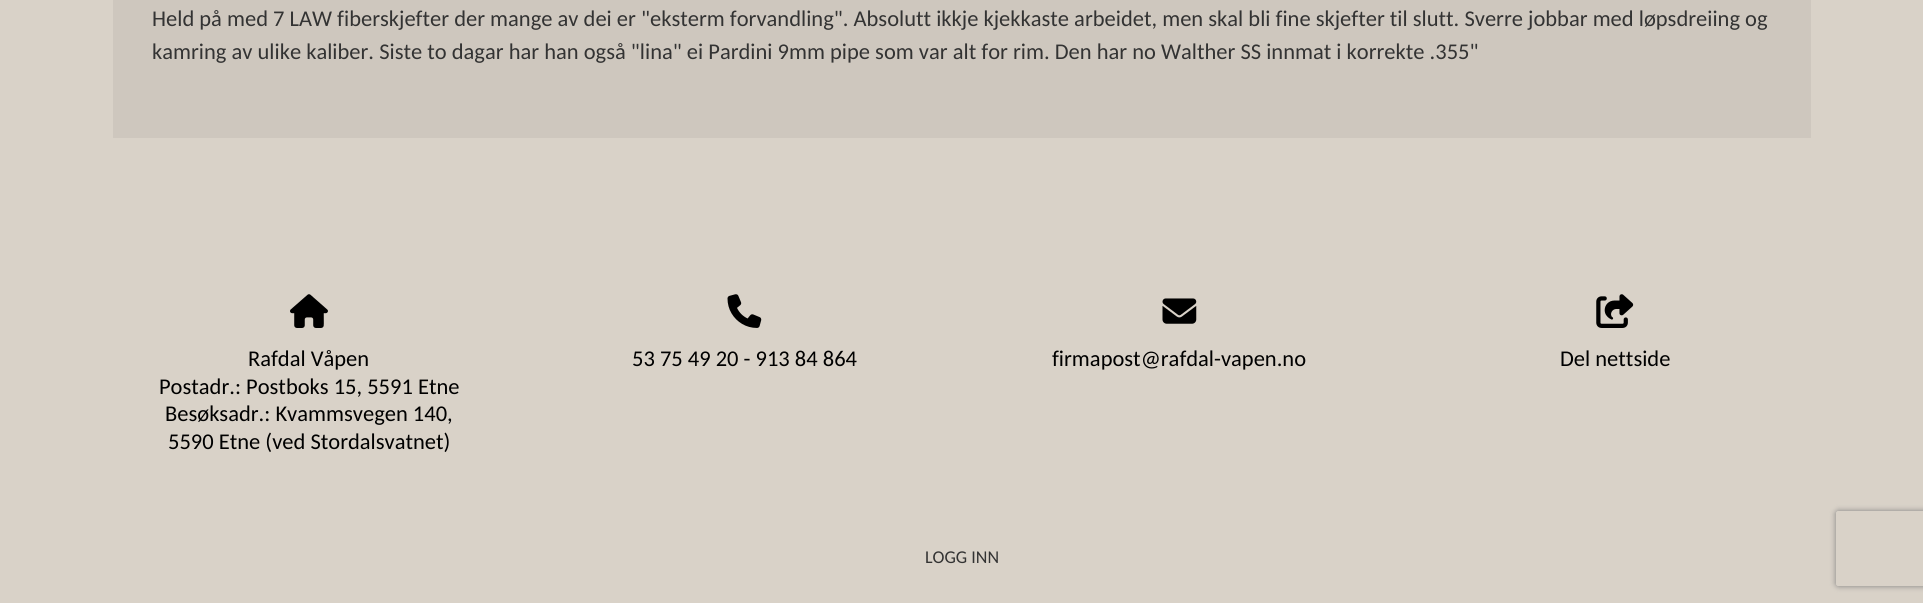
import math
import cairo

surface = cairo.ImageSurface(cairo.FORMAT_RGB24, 1923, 603)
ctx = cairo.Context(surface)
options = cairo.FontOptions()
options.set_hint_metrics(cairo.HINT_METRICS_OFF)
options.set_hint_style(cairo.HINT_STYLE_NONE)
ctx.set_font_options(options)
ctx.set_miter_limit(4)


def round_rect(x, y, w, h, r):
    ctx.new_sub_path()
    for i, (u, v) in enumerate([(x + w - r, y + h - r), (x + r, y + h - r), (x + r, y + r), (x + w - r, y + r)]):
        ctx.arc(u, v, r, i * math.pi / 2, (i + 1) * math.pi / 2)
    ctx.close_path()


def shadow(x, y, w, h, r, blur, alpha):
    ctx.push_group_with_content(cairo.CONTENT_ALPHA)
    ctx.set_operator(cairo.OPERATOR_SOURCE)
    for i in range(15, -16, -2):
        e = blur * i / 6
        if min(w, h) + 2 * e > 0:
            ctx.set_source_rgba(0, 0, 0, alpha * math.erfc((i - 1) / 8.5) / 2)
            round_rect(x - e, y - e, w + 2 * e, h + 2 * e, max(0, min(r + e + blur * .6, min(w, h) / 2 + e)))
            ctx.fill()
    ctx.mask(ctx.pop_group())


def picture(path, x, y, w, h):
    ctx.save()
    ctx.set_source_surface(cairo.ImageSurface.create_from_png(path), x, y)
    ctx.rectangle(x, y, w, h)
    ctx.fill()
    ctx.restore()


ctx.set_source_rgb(0.851, 0.824, 0.784)
ctx.paint()
ctx.set_source_rgb(0.808, 0.78, 0.745)
ctx.rectangle(113, 0, 1698, 138)
ctx.fill()
ctx.select_font_face("Carlito")
ctx.set_font_size(22.5)
ctx.set_source_rgb(0.2, 0.2, 0.2)
ctx.move_to(152, 26)
ctx.show_text("Held på med 7 LAW fiberskjefter der mange av dei er \"eksterm forvandling\". Absolutt ikkje kjekkaste arbeidet, men skal bli fine skjefter til slutt. Sverre jobbar med løpsdreiing og")
ctx.move_to(152, 59)
ctx.show_text("kamring av ulike kaliber. Siste to dagar har han også \"lina\" ei Pardini 9mm pipe som var alt for rim. Den har no Walther SS innmat i korrekte .355\"")
picture("img1.png", 290, 294, 38, 34)
ctx.set_source_rgb(0, 0, 0)
ctx.move_to(248, 366)
ctx.show_text("Rafdal Våpen")
ctx.move_to(159, 394)
ctx.show_text("Postadr.: Postboks 15, 5591 Etne")
ctx.move_to(165, 421)
ctx.show_text("Besøksadr.: Kvammsvegen 140,")
ctx.move_to(168, 449)
ctx.show_text("5590 Etne (ved Stordalsvatnet)")
picture("img2.png", 727, 294, 35, 34)
ctx.move_to(632, 366)
ctx.show_text("53 75 49 20 - 913 84 864")
picture("img3.png", 1162, 298, 35, 26)
ctx.move_to(1052, 366)
ctx.show_text("firmapost@rafdal-vapen.no")
picture("img4.png", 1596, 294, 38, 34)
ctx.move_to(1560, 366)
ctx.show_text("Del nettside")
ctx.set_font_size(18)
ctx.set_source_rgb(0.2, 0.2, 0.2)
ctx.move_to(925, 563)
ctx.show_text("LOGG INN")
ctx.save()
ctx.set_fill_rule(cairo.FILL_RULE_EVEN_ODD)
ctx.new_path()
ctx.move_to(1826, 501)
ctx.line_to(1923, 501)
ctx.line_to(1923, 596)
ctx.line_to(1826, 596)
ctx.close_path()
ctx.move_to(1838.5, 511)
ctx.line_to(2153.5, 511)
ctx.curve_to(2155, 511, 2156, 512, 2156, 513.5)
ctx.line_to(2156, 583.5)
ctx.curve_to(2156, 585, 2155, 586, 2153.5, 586)
ctx.line_to(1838.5, 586)
ctx.curve_to(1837, 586, 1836, 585, 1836, 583.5)
ctx.line_to(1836, 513.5)
ctx.curve_to(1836, 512, 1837, 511, 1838.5, 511)
ctx.close_path()
ctx.clip()
ctx.set_source_rgb(0.502, 0.502, 0.502)
shadow(1836, 511, 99, 75, 2.5, 3, 1)
ctx.restore()
surface.write_to_png("page.png")
